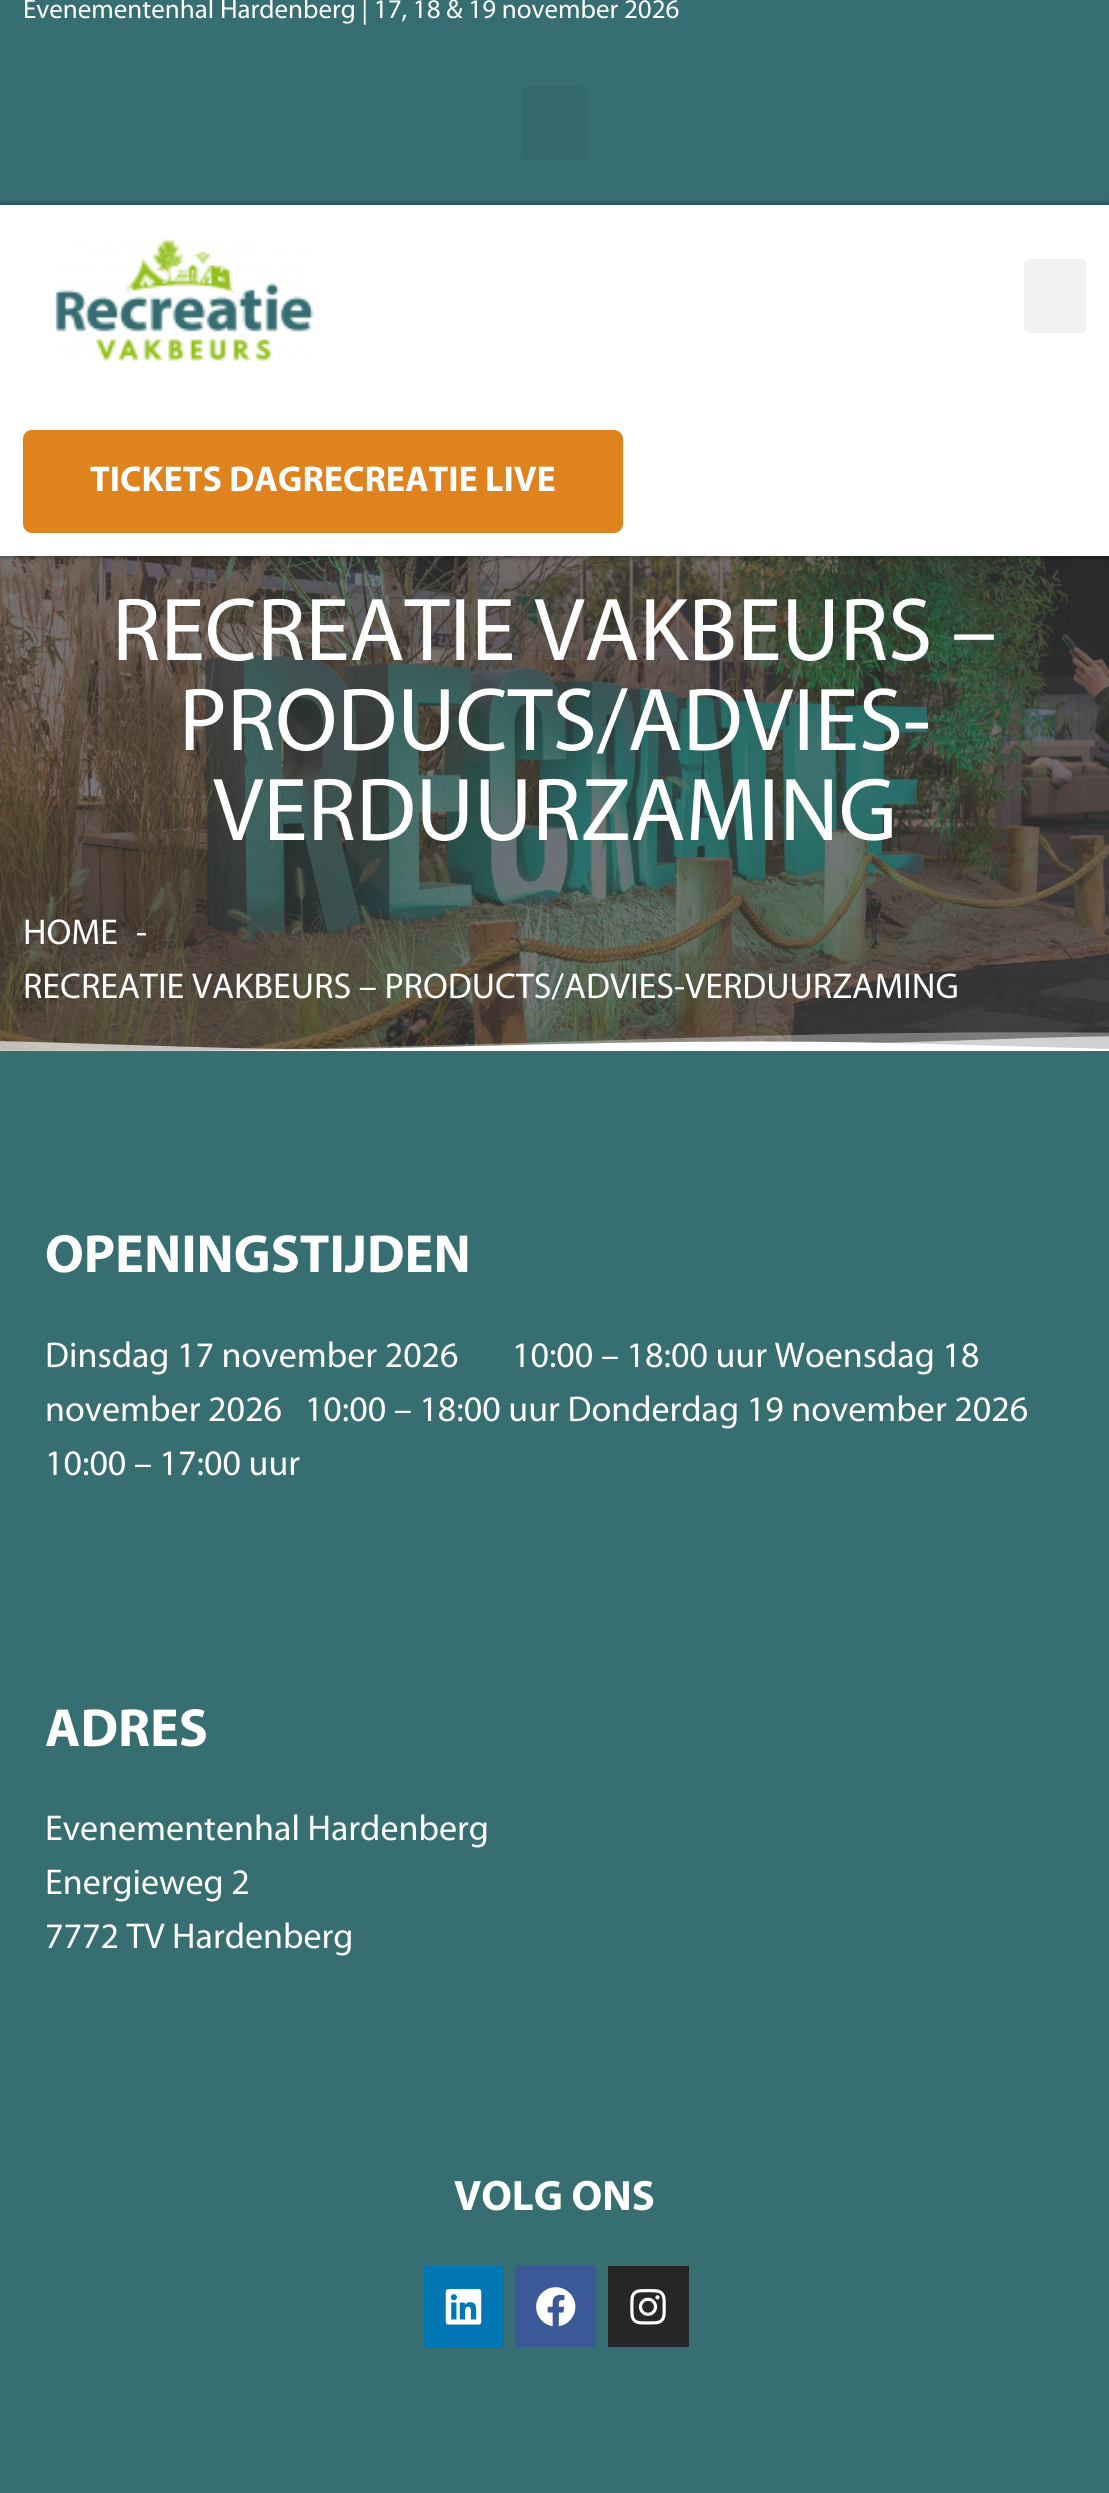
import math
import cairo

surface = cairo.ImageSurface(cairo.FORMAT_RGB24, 1109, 2493)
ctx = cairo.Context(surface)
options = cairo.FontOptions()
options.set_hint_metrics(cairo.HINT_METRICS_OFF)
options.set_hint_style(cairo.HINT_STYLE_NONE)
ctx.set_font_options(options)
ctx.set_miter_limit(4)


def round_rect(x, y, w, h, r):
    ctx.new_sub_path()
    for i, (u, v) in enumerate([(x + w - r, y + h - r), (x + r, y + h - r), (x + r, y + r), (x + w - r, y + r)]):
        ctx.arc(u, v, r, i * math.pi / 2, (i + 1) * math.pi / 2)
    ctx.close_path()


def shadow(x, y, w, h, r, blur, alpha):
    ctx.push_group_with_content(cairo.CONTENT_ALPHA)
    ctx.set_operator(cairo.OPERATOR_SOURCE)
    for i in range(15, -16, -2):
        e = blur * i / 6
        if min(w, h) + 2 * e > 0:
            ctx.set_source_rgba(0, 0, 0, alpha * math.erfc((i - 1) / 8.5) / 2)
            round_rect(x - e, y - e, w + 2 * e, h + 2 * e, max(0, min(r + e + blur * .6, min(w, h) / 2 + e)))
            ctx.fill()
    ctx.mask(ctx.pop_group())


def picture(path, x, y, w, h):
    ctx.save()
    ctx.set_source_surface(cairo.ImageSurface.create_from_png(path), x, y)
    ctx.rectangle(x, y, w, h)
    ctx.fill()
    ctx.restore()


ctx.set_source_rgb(1, 1, 1)
ctx.paint()
ctx.set_source_rgb(0.212, 0.431, 0.447)
ctx.rectangle(0, 0, 1109, 205)
ctx.fill()
ctx.select_font_face("Myriad")
ctx.set_font_size(27)
ctx.set_source_rgb(1, 1, 1)
ctx.move_to(23, 18)
ctx.show_text("Evenementenhal Hardenberg | 17, 18 & 19 november 2026")
ctx.set_source_rgb(0.2, 0.412, 0.424)
round_rect(522, 86, 65, 74, 7)
ctx.fill()
picture("img2.png", 0, 556, 1109, 495)
ctx.set_source_rgb(0, 0, 0)
shadow(0, 205, 1109, 351, 0, 3.5, 0.5)
ctx.set_source_rgb(1, 1, 1)
ctx.rectangle(0, 205, 1109, 351)
ctx.fill()
picture("img1.png", 55, 238, 259, 123)
ctx.set_source_rgb(0.949, 0.949, 0.949)
round_rect(1024, 259, 63, 74, 7)
ctx.fill()
ctx.set_source_rgb(0.875, 0.514, 0.122)
round_rect(23, 430, 600, 103, 9)
ctx.fill()
ctx.select_font_face("Myriad", cairo.FONT_SLANT_NORMAL, cairo.FONT_WEIGHT_BOLD)
ctx.set_font_size(36)
ctx.set_source_rgb(1, 1, 1)
ctx.move_to(90, 491)
ctx.show_text("TICKETS DAGRECREATIE LIVE")
ctx.select_font_face("Myriad")
ctx.set_font_size(90)
ctx.move_to(112, 660)
ctx.show_text("RECREATIE VAKBEURS –")
ctx.move_to(179, 750)
ctx.show_text("PRODUCTS/ADVIES-")
ctx.move_to(213, 840)
ctx.show_text("VERDUURZAMING")
ctx.set_font_size(36)
ctx.move_to(23, 944)
ctx.show_text("HOME")
ctx.move_to(136, 944)
ctx.show_text("-")
ctx.move_to(23, 998)
ctx.show_text("RECREATIE VAKBEURS – PRODUCTS/ADVIES-VERDUURZAMING")
picture("img3.png", 0, 1032, 1109, 19)
ctx.set_source_rgb(0.212, 0.431, 0.447)
ctx.rectangle(0, 1051, 1109, 1442)
ctx.fill()
ctx.select_font_face("Myriad", cairo.FONT_SLANT_NORMAL, cairo.FONT_WEIGHT_BOLD)
ctx.set_font_size(54)
ctx.set_source_rgb(1, 1, 1)
ctx.move_to(45, 1272)
ctx.show_text("OPENINGSTIJDEN")
ctx.select_font_face("Myriad")
ctx.set_font_size(36)
ctx.move_to(45, 1367)
ctx.show_text("Dinsdag 17 november 2026       10:00 – 18:00 uur Woensdag 18")
ctx.move_to(45, 1421)
ctx.show_text("november 2026   10:00 – 18:00 uur Donderdag 19 november 2026")
ctx.move_to(45, 1475)
ctx.show_text("10:00 – 17:00 uur")
ctx.select_font_face("Myriad", cairo.FONT_SLANT_NORMAL, cairo.FONT_WEIGHT_BOLD)
ctx.set_font_size(54)
ctx.move_to(45, 1746)
ctx.show_text("ADRES")
ctx.select_font_face("Myriad")
ctx.set_font_size(36)
ctx.move_to(45, 1840)
ctx.show_text("Evenementenhal Hardenberg")
ctx.move_to(45, 1894)
ctx.show_text("Energieweg 2")
ctx.move_to(45, 1948)
ctx.show_text("7772 TV Hardenberg")
ctx.select_font_face("Myriad", cairo.FONT_SLANT_NORMAL, cairo.FONT_WEIGHT_BOLD)
ctx.set_font_size(42.75)
ctx.move_to(454, 2210)
ctx.show_text("VOLG ONS")
ctx.set_source_rgb(0, 0.467, 0.71)
ctx.rectangle(423, 2266, 81, 81)
ctx.fill()
picture("img4.png", 445, 2289, 37, 36)
ctx.set_source_rgb(0.231, 0.349, 0.596)
ctx.rectangle(515, 2266, 81, 81)
ctx.fill()
picture("img5.png", 536, 2287, 40, 40)
ctx.set_source_rgb(0.149, 0.149, 0.149)
ctx.rectangle(608, 2266, 81, 81)
ctx.fill()
picture("img6.png", 630, 2289, 36, 36)
surface.write_to_png("page.png")
